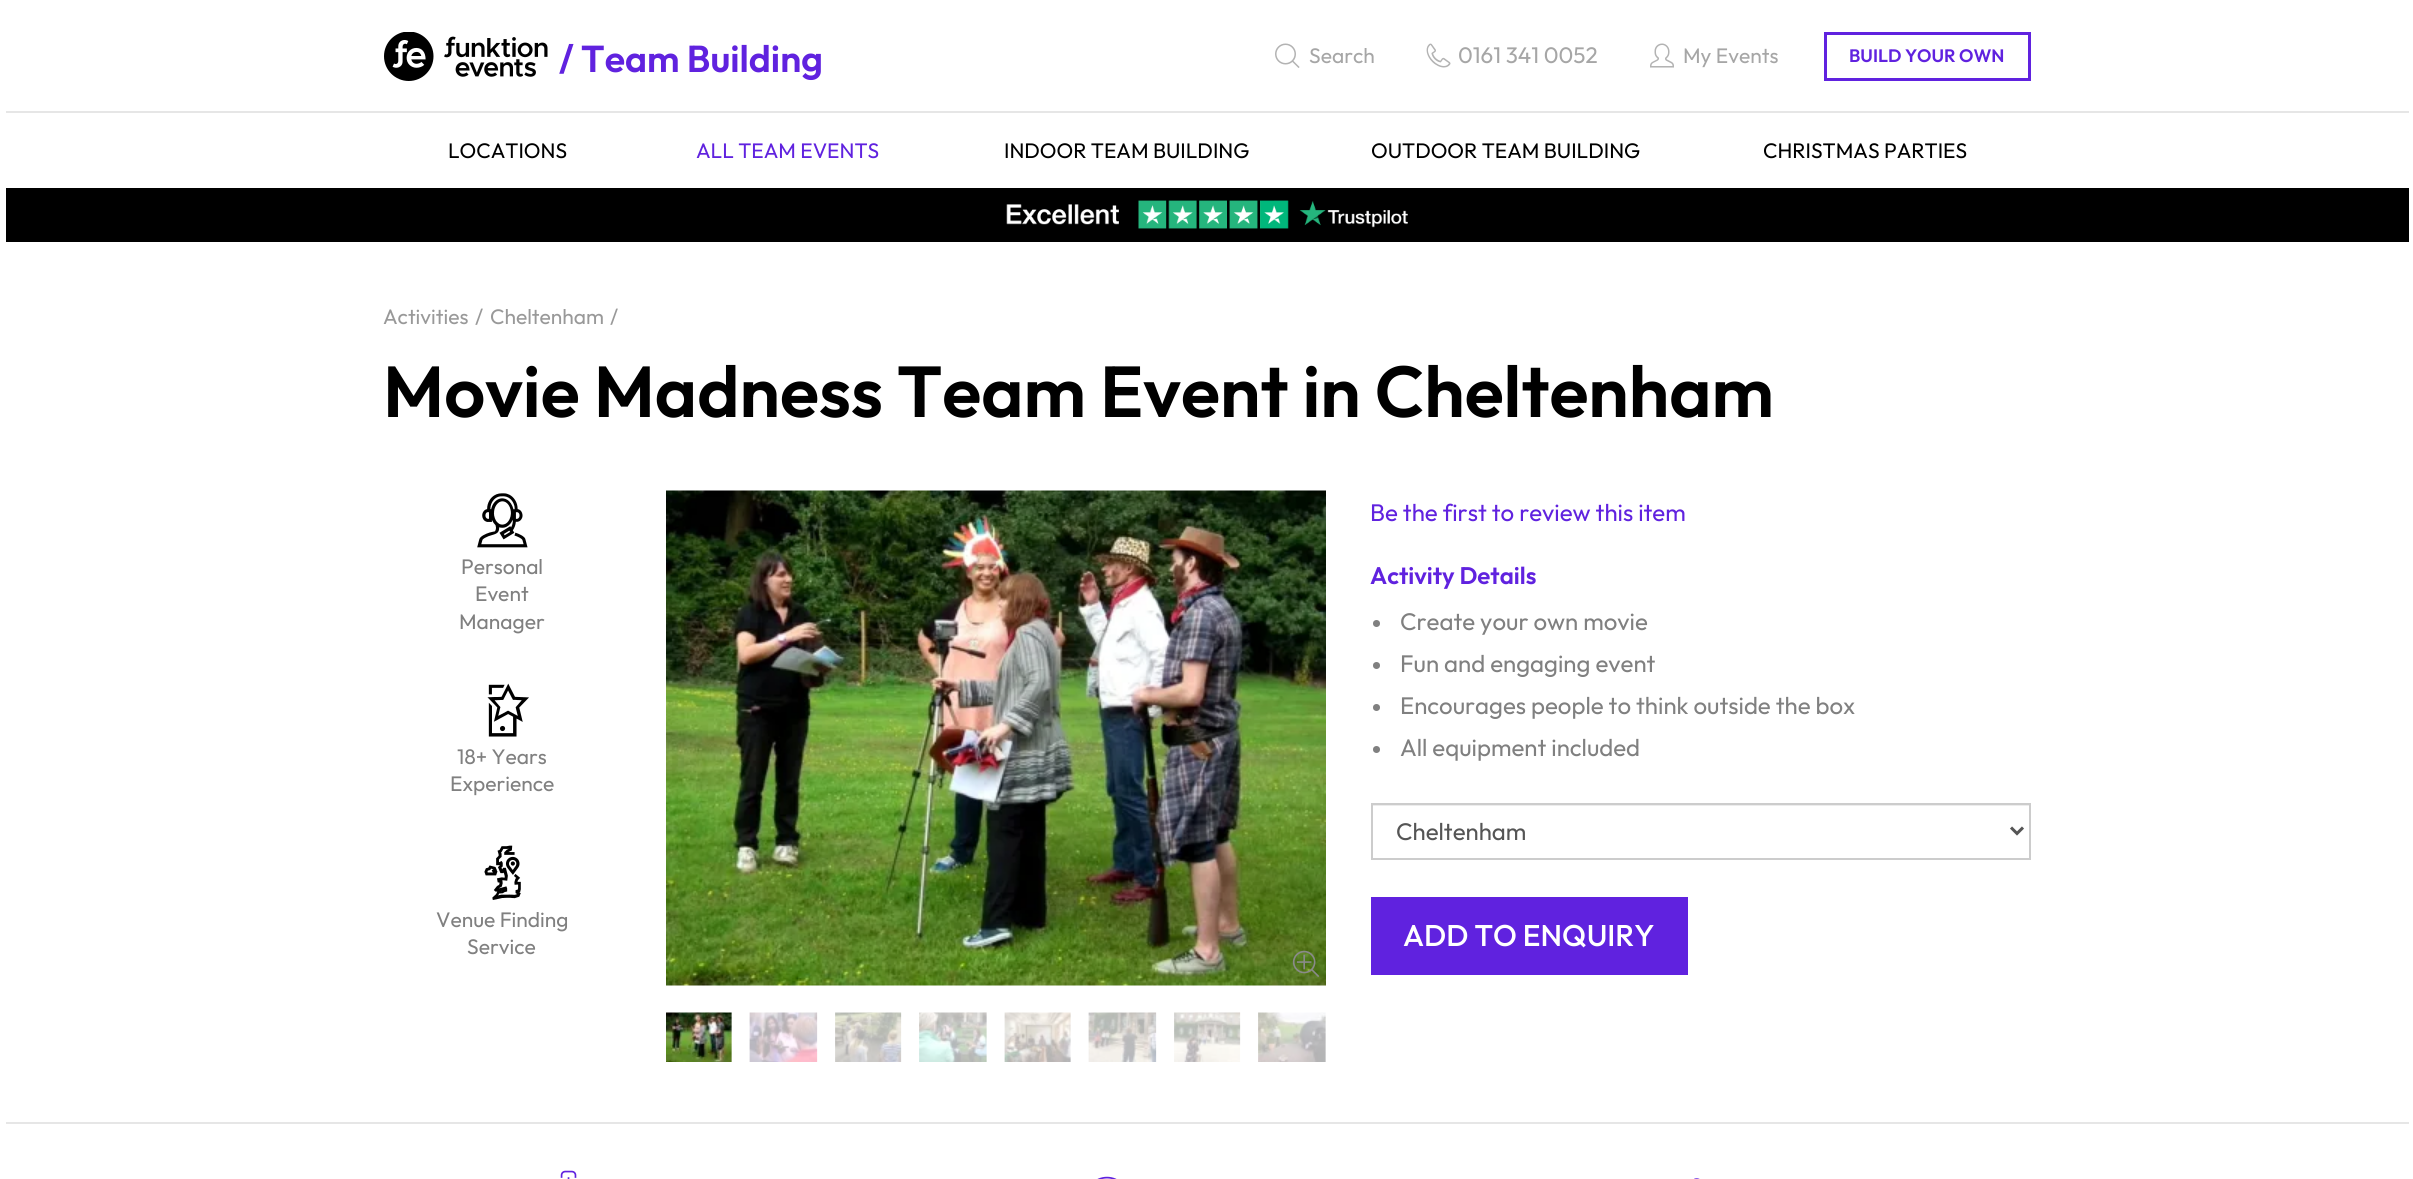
import math
import cairo

surface = cairo.ImageSurface(cairo.FORMAT_RGB24, 2413, 1179)
ctx = cairo.Context(surface)
options = cairo.FontOptions()
options.set_hint_metrics(cairo.HINT_METRICS_OFF)
options.set_hint_style(cairo.HINT_STYLE_NONE)
ctx.set_font_options(options)
ctx.set_miter_limit(4)


def picture(path, x, y, w, h):
    ctx.save()
    ctx.set_source_surface(cairo.ImageSurface.create_from_png(path), x, y)
    ctx.rectangle(x, y, w, h)
    ctx.fill()
    ctx.restore()


ctx.set_source_rgb(1, 1, 1)
ctx.paint()
picture("img1.png", 384, 32, 164, 49)
ctx.select_font_face("Outfit SemiBold")
ctx.set_font_size(37.5)
ctx.set_source_rgb(0.376, 0.133, 0.875)
ctx.move_to(559, 72)
ctx.show_text("/ Team Building")
picture("img2.png", 1275, 43, 25, 25)
ctx.select_font_face("Outfit")
ctx.set_font_size(21)
ctx.set_source_rgb(0.651, 0.651, 0.651)
ctx.move_to(1309, 63)
ctx.show_text("Search")
picture("img3.png", 1426, 43, 25, 25)
ctx.set_font_size(22.5)
ctx.move_to(1458, 63)
ctx.show_text("0161 341 0052")
picture("img4.png", 1650, 43, 24, 25)
ctx.set_font_size(21)
ctx.move_to(1683, 63)
ctx.show_text("My Events")
ctx.rectangle(1825.5, 33.5, 204, 46)
ctx.set_source_rgb(0.376, 0.133, 0.875)
ctx.set_line_width(3)
ctx.stroke()
ctx.select_font_face("Outfit SemiBold")
ctx.set_font_size(18)
ctx.move_to(1849, 62)
ctx.show_text("BUILD YOUR OWN")
ctx.set_source_rgb(0.902, 0.902, 0.902)
ctx.rectangle(6, 111, 2403, 2)
ctx.fill()
ctx.select_font_face("Outfit")
ctx.set_font_size(21)
ctx.set_source_rgb(0, 0, 0)
ctx.move_to(448, 158)
ctx.show_text("LOCATIONS")
ctx.set_source_rgb(0.376, 0.133, 0.875)
ctx.move_to(696, 158)
ctx.show_text("ALL TEAM EVENTS")
ctx.set_source_rgb(0, 0, 0)
ctx.move_to(1004, 158)
ctx.show_text("INDOOR TEAM BUILDING")
ctx.move_to(1371, 158)
ctx.show_text("OUTDOOR TEAM BUILDING")
ctx.move_to(1763, 158)
ctx.show_text("CHRISTMAS PARTIES")
ctx.rectangle(6, 188, 2403, 54)
ctx.fill()
picture("img5.png", 1006, 200, 402, 29)
ctx.set_source_rgb(0.6, 0.6, 0.6)
ctx.move_to(383, 324)
ctx.show_text("Activities")
ctx.move_to(475, 324)
ctx.show_text("/")
ctx.move_to(490, 324)
ctx.show_text("Cheltenham")
ctx.move_to(610, 324)
ctx.show_text("/")
ctx.select_font_face("Outfit SemiBold")
ctx.set_font_size(72)
ctx.set_source_rgb(0, 0, 0)
ctx.move_to(383, 417)
ctx.show_text("Movie Madness Team Event in Cheltenham")
picture("img6.png", 477, 493, 51, 55)
ctx.select_font_face("Outfit")
ctx.set_font_size(21)
ctx.set_source_rgb(0.502, 0.502, 0.502)
ctx.move_to(461, 574)
ctx.show_text("Personal")
ctx.move_to(475, 601)
ctx.show_text("Event")
ctx.move_to(459, 629)
ctx.show_text("Manager")
picture("img7.png", 487, 683, 42, 54)
ctx.move_to(457, 764)
ctx.show_text("18+ Years")
ctx.move_to(450, 791)
ctx.show_text("Experience")
picture("img8.png", 484, 845, 37, 55)
ctx.move_to(436, 927)
ctx.show_text("Venue Finding")
ctx.move_to(467, 954)
ctx.show_text("Service")
picture("img9.png", 666, 490, 660, 496)
picture("img10.png", 1292, 950, 28, 27)
picture("img11.png", 666, 1012, 66, 50)
picture("img12.png", 749, 1012, 69, 50)
picture("img13.png", 835, 1012, 67, 50)
picture("img14.png", 919, 1012, 68, 50)
picture("img15.png", 1004, 1012, 67, 50)
picture("img16.png", 1088, 1012, 69, 50)
picture("img17.png", 1174, 1012, 67, 50)
picture("img18.png", 1258, 1012, 68, 50)
ctx.set_font_size(24)
ctx.set_source_rgb(0.376, 0.133, 0.875)
ctx.move_to(1370, 521)
ctx.show_text("Be the first to review this item")
ctx.select_font_face("Outfit SemiBold")
ctx.move_to(1370, 584)
ctx.show_text("Activity Details")
ctx.set_source_rgb(0.502, 0.502, 0.502)
ctx.new_path()
ctx.arc(1376.5, 623.5, 3.5, 0, 2 * math.pi)
ctx.fill()
ctx.select_font_face("Outfit")
ctx.move_to(1400, 630)
ctx.show_text("Create your own movie")
ctx.new_path()
ctx.arc(1376.5, 665.5, 3.5, 0, 2 * math.pi)
ctx.fill()
ctx.move_to(1400, 672)
ctx.show_text("Fun and engaging event")
ctx.new_path()
ctx.arc(1376.5, 707.5, 3.5, 0, 2 * math.pi)
ctx.fill()
ctx.move_to(1400, 714)
ctx.show_text("Encourages people to think outside the box")
ctx.new_path()
ctx.arc(1376.5, 749.5, 3.5, 0, 2 * math.pi)
ctx.fill()
ctx.move_to(1400, 756)
ctx.show_text("All equipment included")
ctx.set_source_rgb(0.925, 0.925, 0.925)
ctx.rectangle(1373, 805, 657, 1)
ctx.fill()
ctx.rectangle(1372, 804, 658, 55)
ctx.set_source_rgb(0.8, 0.8, 0.8)
ctx.set_line_width(2)
ctx.stroke()
ctx.new_path()
ctx.move_to(2011, 827.5)
ctx.line_to(2017, 833.5)
ctx.line_to(2023, 827.5)
ctx.set_source_rgb(0.333, 0.333, 0.333)
ctx.set_line_width(3)
ctx.stroke()
ctx.move_to(1396, 840)
ctx.show_text("Cheltenham")
ctx.set_source_rgb(0.376, 0.133, 0.875)
ctx.rectangle(1371, 897, 317, 78)
ctx.fill()
ctx.select_font_face("Outfit Medium")
ctx.set_font_size(30)
ctx.set_source_rgb(1, 1, 1)
ctx.move_to(1403, 946)
ctx.show_text("ADD TO ENQUIRY")
ctx.set_source_rgb(0.902, 0.902, 0.902)
ctx.rectangle(6, 1122, 2403, 2)
ctx.fill()
picture("img19.png", 560, 1170, 17, 9)
picture("img20.png", 1097, 1176, 20, 3)
picture("img21.png", 1694, 1178, 6, 1)
surface.write_to_png("page.png")
